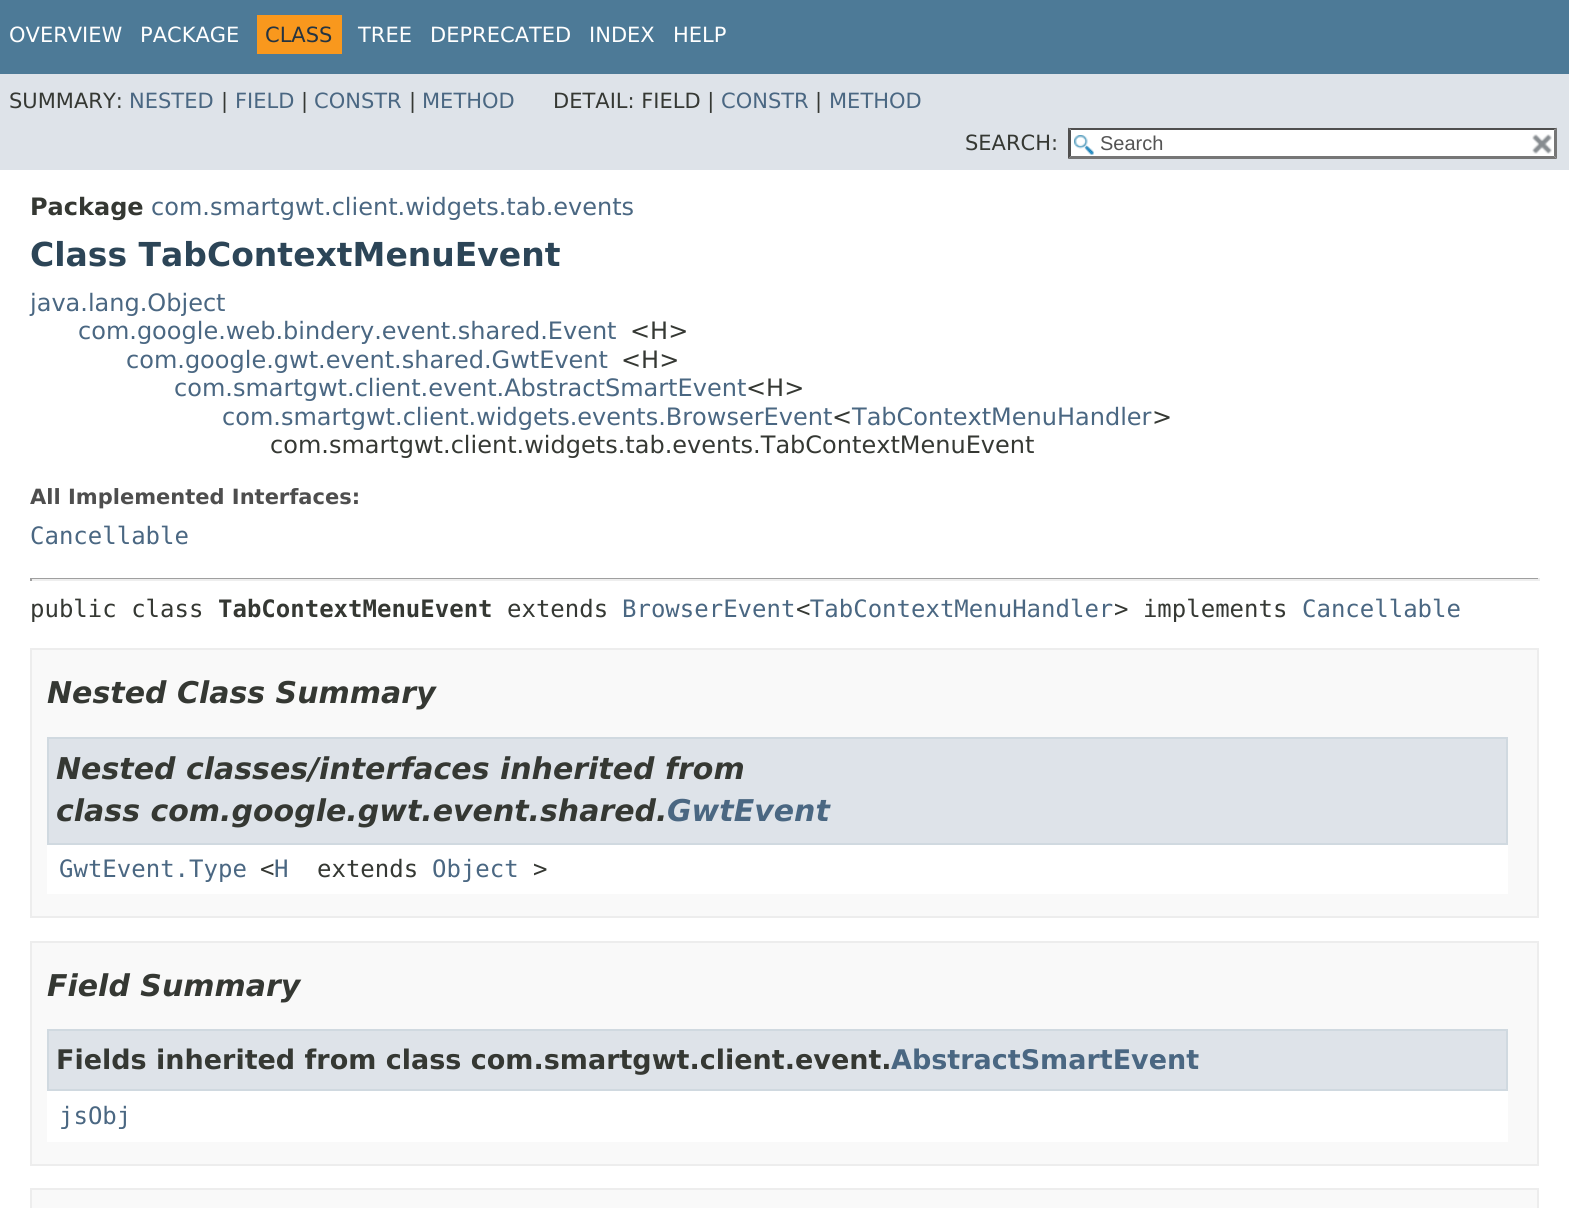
import math
import cairo

surface = cairo.ImageSurface(cairo.FORMAT_RGB24, 1569, 1208)
ctx = cairo.Context(surface)
options = cairo.FontOptions()
options.set_hint_metrics(cairo.HINT_METRICS_OFF)
options.set_hint_style(cairo.HINT_STYLE_NONE)
ctx.set_font_options(options)
ctx.set_miter_limit(4)


def picture(path, x, y, w, h):
    ctx.save()
    ctx.set_source_surface(cairo.ImageSurface.create_from_png(path), x, y)
    ctx.rectangle(x, y, w, h)
    ctx.fill()
    ctx.restore()


ctx.set_source_rgb(1, 1, 1)
ctx.paint()
ctx.set_source_rgb(0.302, 0.478, 0.592)
ctx.rectangle(0, 0, 1569, 74)
ctx.fill()
ctx.select_font_face("DejaVu Sans")
ctx.set_font_size(21)
ctx.set_source_rgb(1, 1, 1)
ctx.move_to(9, 42)
ctx.show_text("OVERVIEW")
ctx.move_to(140, 42)
ctx.show_text("PACKAGE")
ctx.set_source_rgb(0.973, 0.596, 0.114)
ctx.rectangle(257, 15, 85, 39)
ctx.fill()
ctx.set_source_rgb(0.145, 0.204, 0.255)
ctx.move_to(265, 42)
ctx.show_text("CLASS")
ctx.set_source_rgb(1, 1, 1)
ctx.move_to(358, 42)
ctx.show_text("TREE")
ctx.move_to(430, 42)
ctx.show_text("DEPRECATED")
ctx.move_to(589, 42)
ctx.show_text("INDEX")
ctx.move_to(673, 42)
ctx.show_text("HELP")
ctx.set_source_rgb(0.871, 0.89, 0.914)
ctx.rectangle(0, 74, 1569, 96)
ctx.fill()
ctx.set_source_rgb(0.208, 0.22, 0.2)
ctx.move_to(9, 108)
ctx.show_text("SUMMARY:")
ctx.set_source_rgb(0.29, 0.404, 0.51)
ctx.move_to(129, 108)
ctx.show_text("NESTED")
ctx.set_source_rgb(0.208, 0.22, 0.2)
ctx.move_to(221, 108)
ctx.show_text("|")
ctx.set_source_rgb(0.29, 0.404, 0.51)
ctx.move_to(235, 108)
ctx.show_text("FIELD")
ctx.set_source_rgb(0.208, 0.22, 0.2)
ctx.move_to(301, 108)
ctx.show_text("|")
ctx.set_source_rgb(0.29, 0.404, 0.51)
ctx.move_to(314, 108)
ctx.show_text("CONSTR")
ctx.set_source_rgb(0.208, 0.22, 0.2)
ctx.move_to(409, 108)
ctx.show_text("|")
ctx.set_source_rgb(0.29, 0.404, 0.51)
ctx.move_to(422, 108)
ctx.show_text("METHOD")
ctx.set_source_rgb(0.208, 0.22, 0.2)
ctx.move_to(553, 108)
ctx.show_text("DETAIL: FIELD |")
ctx.set_source_rgb(0.29, 0.404, 0.51)
ctx.move_to(721, 108)
ctx.show_text("CONSTR")
ctx.set_source_rgb(0.208, 0.22, 0.2)
ctx.move_to(815, 108)
ctx.show_text("|")
ctx.set_source_rgb(0.29, 0.404, 0.51)
ctx.move_to(829, 108)
ctx.show_text("METHOD")
ctx.set_source_rgb(0.208, 0.22, 0.2)
ctx.move_to(965, 150)
ctx.show_text("SEARCH:")
ctx.set_source_rgb(1, 1, 1)
ctx.rectangle(1068, 128, 489, 31)
ctx.fill()
picture("img1.png", 1074, 135, 20, 20)
ctx.set_source_rgb(0.31, 0.31, 0.31)
ctx.new_path()
ctx.move_to(1068, 128)
ctx.line_to(1557, 128)
ctx.line_to(1554, 130)
ctx.line_to(1071, 130)
ctx.close_path()
ctx.fill()
ctx.set_source_rgb(0.463, 0.463, 0.463)
ctx.new_path()
ctx.move_to(1557, 127.5)
ctx.line_to(1557, 159)
ctx.line_to(1554, 156)
ctx.line_to(1554, 130.5)
ctx.close_path()
ctx.fill()
ctx.new_path()
ctx.move_to(1557, 159)
ctx.line_to(1068, 159)
ctx.line_to(1071, 156)
ctx.line_to(1554, 156)
ctx.close_path()
ctx.fill()
ctx.set_source_rgb(0.31, 0.31, 0.31)
ctx.new_path()
ctx.move_to(1068, 159)
ctx.line_to(1068, 127.5)
ctx.line_to(1071, 130.5)
ctx.line_to(1071, 156)
ctx.close_path()
ctx.fill()
ctx.select_font_face("Liberation Sans")
ctx.set_font_size(20)
ctx.set_source_rgb(0.329, 0.329, 0.329)
ctx.move_to(1100, 150)
ctx.show_text("Search")
picture("img2.png", 1532, 134, 20, 20)
ctx.select_font_face("DejaVu Sans", cairo.FONT_SLANT_NORMAL, cairo.FONT_WEIGHT_BOLD)
ctx.set_font_size(24)
ctx.set_source_rgb(0.208, 0.22, 0.2)
ctx.move_to(30, 215)
ctx.show_text("Package")
ctx.select_font_face("DejaVu Sans")
ctx.set_source_rgb(0.29, 0.404, 0.51)
ctx.move_to(151, 215)
ctx.show_text("com.smartgwt.client.widgets.tab.events")
ctx.select_font_face("DejaVu Sans", cairo.FONT_SLANT_NORMAL, cairo.FONT_WEIGHT_BOLD)
ctx.set_font_size(33)
ctx.set_source_rgb(0.173, 0.271, 0.341)
ctx.move_to(30, 266)
ctx.show_text("Class TabContextMenuEvent")
ctx.select_font_face("DejaVu Sans")
ctx.set_font_size(24)
ctx.set_source_rgb(0.29, 0.404, 0.51)
ctx.move_to(30, 311)
ctx.show_text("java.lang.Object")
ctx.move_to(78, 339)
ctx.show_text("com.google.web.bindery.event.shared.Event")
ctx.set_source_rgb(0.208, 0.22, 0.2)
ctx.move_to(630, 339)
ctx.show_text("<H>")
ctx.set_source_rgb(0.29, 0.404, 0.51)
ctx.move_to(126, 368)
ctx.show_text("com.google.gwt.event.shared.GwtEvent")
ctx.set_source_rgb(0.208, 0.22, 0.2)
ctx.move_to(621, 368)
ctx.show_text("<H>")
ctx.set_source_rgb(0.29, 0.404, 0.51)
ctx.move_to(174, 396)
ctx.show_text("com.smartgwt.client.event.AbstractSmartEvent")
ctx.set_source_rgb(0.208, 0.22, 0.2)
ctx.move_to(746, 396)
ctx.show_text("<H>")
ctx.set_source_rgb(0.29, 0.404, 0.51)
ctx.move_to(222, 425)
ctx.show_text("com.smartgwt.client.widgets.events.BrowserEvent")
ctx.set_source_rgb(0.208, 0.22, 0.2)
ctx.move_to(832, 425)
ctx.show_text("<")
ctx.set_source_rgb(0.29, 0.404, 0.51)
ctx.move_to(852, 425)
ctx.show_text("TabContextMenuHandler")
ctx.set_source_rgb(0.208, 0.22, 0.2)
ctx.move_to(1152, 425)
ctx.show_text(">")
ctx.move_to(270, 453)
ctx.show_text("com.smartgwt.client.widgets.tab.events.TabContextMenuEvent")
ctx.select_font_face("DejaVu Sans", cairo.FONT_SLANT_NORMAL, cairo.FONT_WEIGHT_BOLD)
ctx.set_font_size(21)
ctx.set_source_rgb(0.306, 0.306, 0.306)
ctx.move_to(30, 504)
ctx.show_text("All Implemented Interfaces:")
ctx.select_font_face("DejaVu Sans Mono")
ctx.set_font_size(24)
ctx.set_source_rgb(0.29, 0.404, 0.51)
ctx.move_to(30, 544)
ctx.show_text("Cancellable")
ctx.set_source_rgb(0.624, 0.624, 0.624)
ctx.rectangle(30, 578, 1509, 1)
ctx.fill()
ctx.set_source_rgb(0.933, 0.933, 0.933)
ctx.rectangle(1538, 578, 2, 3)
ctx.fill()
ctx.rectangle(30, 579, 1509, 2)
ctx.fill()
ctx.set_source_rgb(0.624, 0.624, 0.624)
ctx.rectangle(30, 578, 2, 3)
ctx.fill()
ctx.set_source_rgb(0.208, 0.22, 0.2)
ctx.move_to(30, 617)
ctx.show_text("public class")
ctx.select_font_face("DejaVu Sans Mono", cairo.FONT_SLANT_NORMAL, cairo.FONT_WEIGHT_BOLD)
ctx.move_to(218, 617)
ctx.show_text("TabContextMenuEvent")
ctx.select_font_face("DejaVu Sans Mono")
ctx.move_to(507, 617)
ctx.show_text("extends")
ctx.set_source_rgb(0.29, 0.404, 0.51)
ctx.move_to(622, 617)
ctx.show_text("BrowserEvent TabContextMenuHandler")
ctx.set_source_rgb(0.208, 0.22, 0.2)
ctx.move_to(1114, 617)
ctx.show_text("> implements")
ctx.set_source_rgb(0.29, 0.404, 0.51)
ctx.move_to(1302, 617)
ctx.show_text("Cancellable")
ctx.set_source_rgb(0.208, 0.22, 0.2)
ctx.move_to(796, 617)
ctx.show_text("<")
ctx.set_source_rgb(0.973, 0.973, 0.973)
ctx.rectangle(31, 649, 1507, 268)
ctx.fill_preserve()
ctx.set_source_rgb(0.929, 0.929, 0.929)
ctx.stroke()
ctx.select_font_face("DejaVu Sans", cairo.FONT_SLANT_ITALIC, cairo.FONT_WEIGHT_BOLD)
ctx.set_font_size(30)
ctx.set_source_rgb(0.208, 0.22, 0.2)
ctx.move_to(47, 703)
ctx.show_text("Nested Class Summary")
ctx.set_source_rgb(1, 1, 1)
ctx.rectangle(47, 845, 1461, 49)
ctx.fill()
ctx.set_source_rgb(0.871, 0.89, 0.914)
ctx.rectangle(48, 738, 1459, 106)
ctx.fill_preserve()
ctx.set_source_rgb(0.816, 0.851, 0.878)
ctx.stroke()
ctx.set_source_rgb(0.208, 0.22, 0.2)
ctx.move_to(56, 779)
ctx.show_text("Nested classes/interfaces inherited from")
ctx.move_to(56, 821)
ctx.show_text("class com.google.gwt.event.shared.")
ctx.set_source_rgb(0.29, 0.404, 0.51)
ctx.move_to(667, 821)
ctx.show_text("GwtEvent")
ctx.select_font_face("DejaVu Sans Mono")
ctx.set_font_size(24)
ctx.move_to(59, 877)
ctx.show_text("GwtEvent.Type")
ctx.set_source_rgb(0.208, 0.22, 0.2)
ctx.move_to(260, 877)
ctx.show_text("<")
ctx.set_source_rgb(0.29, 0.404, 0.51)
ctx.move_to(274, 877)
ctx.show_text("H")
ctx.set_source_rgb(0.208, 0.22, 0.2)
ctx.move_to(317, 877)
ctx.show_text("extends")
ctx.set_source_rgb(0.29, 0.404, 0.51)
ctx.move_to(432, 877)
ctx.show_text("Object")
ctx.set_source_rgb(0.208, 0.22, 0.2)
ctx.move_to(533, 877)
ctx.show_text(">")
ctx.set_source_rgb(0.973, 0.973, 0.973)
ctx.rectangle(31, 942, 1507, 223)
ctx.fill_preserve()
ctx.set_source_rgb(0.929, 0.929, 0.929)
ctx.stroke()
ctx.select_font_face("DejaVu Sans", cairo.FONT_SLANT_ITALIC, cairo.FONT_WEIGHT_BOLD)
ctx.set_font_size(30)
ctx.set_source_rgb(0.208, 0.22, 0.2)
ctx.move_to(47, 996)
ctx.show_text("Field Summary")
ctx.set_source_rgb(1, 1, 1)
ctx.rectangle(47, 1091, 1461, 51)
ctx.fill()
ctx.set_source_rgb(0.871, 0.89, 0.914)
ctx.rectangle(48, 1030, 1459, 60)
ctx.fill_preserve()
ctx.set_source_rgb(0.816, 0.851, 0.878)
ctx.stroke()
ctx.select_font_face("DejaVu Sans", cairo.FONT_SLANT_NORMAL, cairo.FONT_WEIGHT_BOLD)
ctx.set_font_size(27)
ctx.set_source_rgb(0.208, 0.22, 0.2)
ctx.move_to(56, 1069)
ctx.show_text("Fields inherited from class com.smartgwt.client.event.")
ctx.set_source_rgb(0.29, 0.404, 0.51)
ctx.move_to(891, 1069)
ctx.show_text("AbstractSmartEvent")
ctx.select_font_face("DejaVu Sans Mono")
ctx.set_font_size(24)
ctx.move_to(59, 1124)
ctx.show_text("jsObj")
ctx.set_source_rgb(0.973, 0.973, 0.973)
ctx.rectangle(31, 1189, 1507, 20)
ctx.fill_preserve()
ctx.set_source_rgb(0.929, 0.929, 0.929)
ctx.stroke()
surface.write_to_png("page.png")
